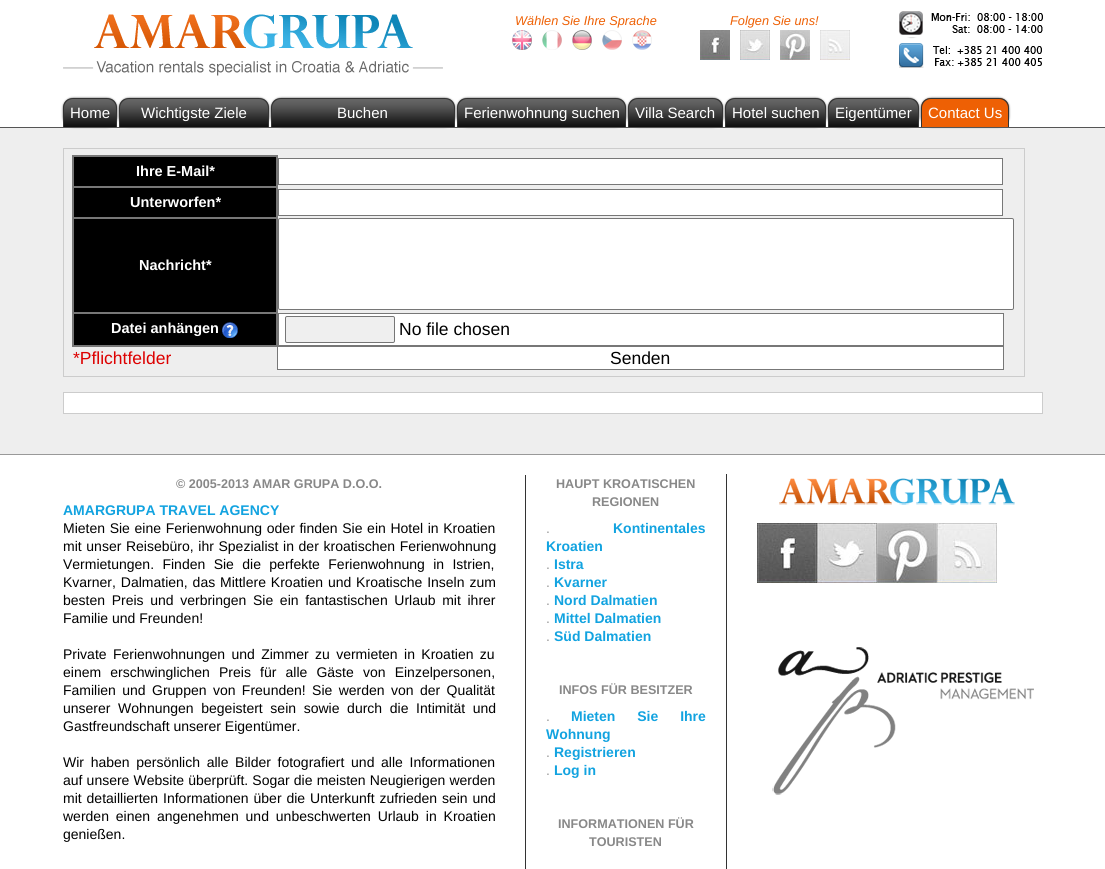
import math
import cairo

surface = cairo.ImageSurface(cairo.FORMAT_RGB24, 1105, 869)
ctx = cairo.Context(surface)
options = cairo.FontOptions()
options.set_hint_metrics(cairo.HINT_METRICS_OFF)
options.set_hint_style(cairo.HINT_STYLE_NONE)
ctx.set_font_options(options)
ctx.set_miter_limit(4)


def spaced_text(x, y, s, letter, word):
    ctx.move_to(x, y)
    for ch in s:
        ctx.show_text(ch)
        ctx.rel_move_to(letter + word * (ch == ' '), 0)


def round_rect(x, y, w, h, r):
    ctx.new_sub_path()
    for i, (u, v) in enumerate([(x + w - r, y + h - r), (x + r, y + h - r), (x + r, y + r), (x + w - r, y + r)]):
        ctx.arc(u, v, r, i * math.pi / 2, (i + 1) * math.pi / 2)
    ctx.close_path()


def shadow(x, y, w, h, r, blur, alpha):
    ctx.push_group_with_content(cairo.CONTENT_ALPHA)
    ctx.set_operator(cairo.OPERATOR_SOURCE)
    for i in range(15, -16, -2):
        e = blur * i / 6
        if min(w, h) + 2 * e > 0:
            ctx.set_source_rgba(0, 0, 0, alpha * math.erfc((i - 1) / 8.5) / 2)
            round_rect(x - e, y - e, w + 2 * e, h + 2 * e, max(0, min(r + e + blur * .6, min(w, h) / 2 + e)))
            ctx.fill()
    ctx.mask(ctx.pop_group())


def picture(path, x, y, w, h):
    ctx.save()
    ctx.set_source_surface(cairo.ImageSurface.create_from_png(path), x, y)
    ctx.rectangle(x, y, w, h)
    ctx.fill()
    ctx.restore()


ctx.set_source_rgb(0.933, 0.933, 0.933)
ctx.paint()
ctx.set_source_rgb(1, 1, 1)
ctx.rectangle(0, 0, 1105, 127)
ctx.fill()
ctx.set_source_rgb(0.333, 0.333, 0.333)
ctx.rectangle(0, 127, 1105, 1)
ctx.fill()
picture("img1.png", 63, 14, 380, 62)
ctx.select_font_face("Liberation Sans", cairo.FONT_SLANT_ITALIC)
ctx.set_font_size(12.75)
ctx.set_source_rgb(0.933, 0.376, 0.016)
ctx.move_to(515, 25)
ctx.show_text("Wählen Sie Ihre Sprache")
picture("img2.png", 512, 30, 20, 20)
picture("img3.png", 542, 30, 20, 20)
picture("img4.png", 572, 30, 20, 20)
picture("img5.png", 602, 30, 20, 20)
picture("img6.png", 632, 30, 20, 20)
ctx.move_to(730, 25)
ctx.show_text("Folgen Sie uns!")
picture("img7.png", 700, 30, 30, 30)
picture("img8.png", 740, 30, 30, 30)
picture("img9.png", 780, 30, 30, 30)
picture("img10.png", 820, 30, 30, 30)
picture("img11.png", 899, 11, 144, 57)
ctx.set_source_rgb(0.333, 0.333, 0.333)
shadow(63, 98, 54, 29, 10, 1, 1)
picture("img12.png", 63, 99, 54, 28)
ctx.set_source_rgb(0.2, 0.2, 0.2)
ctx.set_fill_rule(cairo.FILL_RULE_EVEN_ODD)
ctx.new_path()
ctx.move_to(73, 98)
ctx.line_to(107, 98)
ctx.curve_to(113, 98, 117, 102, 117, 108)
ctx.line_to(117, 127)
ctx.line_to(63, 127)
ctx.line_to(63, 108)
ctx.curve_to(63, 102, 67, 98, 73, 98)
ctx.close_path()
ctx.move_to(73, 99)
ctx.line_to(107, 99)
ctx.curve_to(112, 99, 116, 103, 116, 108)
ctx.line_to(116, 127)
ctx.line_to(64, 127)
ctx.line_to(64, 108)
ctx.curve_to(64, 103, 68, 99, 73, 99)
ctx.close_path()
ctx.fill()
ctx.select_font_face("Liberation Sans")
ctx.set_font_size(15)
ctx.set_source_rgb(1, 1, 1)
ctx.move_to(70, 118)
ctx.show_text("Home")
ctx.set_source_rgb(0.333, 0.333, 0.333)
shadow(119, 98, 150, 29, 10, 1, 1)
picture("img13.png", 119, 99, 150, 28)
ctx.set_source_rgb(0.2, 0.2, 0.2)
ctx.new_path()
ctx.move_to(129, 98)
ctx.line_to(259, 98)
ctx.curve_to(265, 98, 269, 102, 269, 108)
ctx.line_to(269, 127)
ctx.line_to(119, 127)
ctx.line_to(119, 108)
ctx.curve_to(119, 102, 123, 98, 129, 98)
ctx.close_path()
ctx.move_to(129, 99)
ctx.line_to(259, 99)
ctx.curve_to(264, 99, 268, 103, 268, 108)
ctx.line_to(268, 127)
ctx.line_to(120, 127)
ctx.line_to(120, 108)
ctx.curve_to(120, 103, 124, 99, 129, 99)
ctx.close_path()
ctx.fill()
ctx.set_source_rgb(1, 1, 1)
ctx.move_to(141, 118)
ctx.show_text("Wichtigste Ziele")
ctx.set_source_rgb(0.333, 0.333, 0.333)
shadow(271, 98, 184, 29, 10, 1, 1)
picture("img14.png", 271, 99, 184, 28)
ctx.set_source_rgb(0.2, 0.2, 0.2)
ctx.new_path()
ctx.move_to(281, 98)
ctx.line_to(445, 98)
ctx.curve_to(451, 98, 455, 102, 455, 108)
ctx.line_to(455, 127)
ctx.line_to(271, 127)
ctx.line_to(271, 108)
ctx.curve_to(271, 102, 275, 98, 281, 98)
ctx.close_path()
ctx.move_to(281, 99)
ctx.line_to(445, 99)
ctx.curve_to(450, 99, 454, 103, 454, 108)
ctx.line_to(454, 127)
ctx.line_to(272, 127)
ctx.line_to(272, 108)
ctx.curve_to(272, 103, 276, 99, 281, 99)
ctx.close_path()
ctx.fill()
ctx.set_source_rgb(1, 1, 1)
ctx.move_to(337, 118)
ctx.show_text("Buchen")
ctx.set_source_rgb(0.333, 0.333, 0.333)
shadow(457, 98, 169, 29, 10, 1, 1)
picture("img15.png", 457, 99, 169, 28)
ctx.set_source_rgb(0.2, 0.2, 0.2)
ctx.new_path()
ctx.move_to(467, 98)
ctx.line_to(616, 98)
ctx.curve_to(622, 98, 626, 102, 626, 108)
ctx.line_to(626, 127)
ctx.line_to(457, 127)
ctx.line_to(457, 108)
ctx.curve_to(457, 102, 461, 98, 467, 98)
ctx.close_path()
ctx.move_to(467, 99)
ctx.line_to(616, 99)
ctx.curve_to(621, 99, 625, 103, 625, 108)
ctx.line_to(625, 127)
ctx.line_to(458, 127)
ctx.line_to(458, 108)
ctx.curve_to(458, 103, 462, 99, 467, 99)
ctx.close_path()
ctx.fill()
ctx.set_source_rgb(1, 1, 1)
ctx.move_to(464, 118)
ctx.show_text("Ferienwohnung suchen")
ctx.set_source_rgb(0.333, 0.333, 0.333)
shadow(628, 98, 95, 29, 10, 1, 1)
picture("img16.png", 628, 99, 95, 28)
ctx.set_source_rgb(0.2, 0.2, 0.2)
ctx.new_path()
ctx.move_to(638, 98)
ctx.line_to(713, 98)
ctx.curve_to(719, 98, 723, 102, 723, 108)
ctx.line_to(723, 127)
ctx.line_to(628, 127)
ctx.line_to(628, 108)
ctx.curve_to(628, 102, 632, 98, 638, 98)
ctx.close_path()
ctx.move_to(638, 99)
ctx.line_to(713, 99)
ctx.curve_to(718, 99, 722, 103, 722, 108)
ctx.line_to(722, 127)
ctx.line_to(629, 127)
ctx.line_to(629, 108)
ctx.curve_to(629, 103, 633, 99, 638, 99)
ctx.close_path()
ctx.fill()
ctx.set_source_rgb(1, 1, 1)
ctx.move_to(635, 118)
ctx.show_text("Villa Search")
ctx.set_source_rgb(0.333, 0.333, 0.333)
shadow(725, 98, 101, 29, 10, 1, 1)
picture("img17.png", 725, 99, 101, 28)
ctx.set_source_rgb(0.2, 0.2, 0.2)
ctx.new_path()
ctx.move_to(735, 98)
ctx.line_to(816, 98)
ctx.curve_to(822, 98, 826, 102, 826, 108)
ctx.line_to(826, 127)
ctx.line_to(725, 127)
ctx.line_to(725, 108)
ctx.curve_to(725, 102, 729, 98, 735, 98)
ctx.close_path()
ctx.move_to(735, 99)
ctx.line_to(816, 99)
ctx.curve_to(821, 99, 825, 103, 825, 108)
ctx.line_to(825, 127)
ctx.line_to(726, 127)
ctx.line_to(726, 108)
ctx.curve_to(726, 103, 730, 99, 735, 99)
ctx.close_path()
ctx.fill()
ctx.set_source_rgb(1, 1, 1)
ctx.move_to(732, 118)
ctx.show_text("Hotel suchen")
ctx.set_source_rgb(0.333, 0.333, 0.333)
shadow(828, 98, 91, 29, 10, 1, 1)
picture("img18.png", 828, 99, 91, 28)
ctx.set_source_rgb(0.2, 0.2, 0.2)
ctx.new_path()
ctx.move_to(838, 98)
ctx.line_to(909, 98)
ctx.curve_to(915, 98, 919, 102, 919, 108)
ctx.line_to(919, 127)
ctx.line_to(828, 127)
ctx.line_to(828, 108)
ctx.curve_to(828, 102, 832, 98, 838, 98)
ctx.close_path()
ctx.move_to(838, 99)
ctx.line_to(909, 99)
ctx.curve_to(914, 99, 918, 103, 918, 108)
ctx.line_to(918, 127)
ctx.line_to(829, 127)
ctx.line_to(829, 108)
ctx.curve_to(829, 103, 833, 99, 838, 99)
ctx.close_path()
ctx.fill()
ctx.set_source_rgb(1, 1, 1)
ctx.move_to(835, 118)
ctx.show_text("Eigentümer")
ctx.set_source_rgb(0.333, 0.333, 0.333)
shadow(921, 98, 88, 29, 10, 1, 1)
ctx.set_source_rgb(0.933, 0.376, 0.016)
ctx.new_path()
ctx.move_to(931, 98)
ctx.line_to(999, 98)
ctx.curve_to(1004.5, 98, 1009, 102.5, 1009, 108)
ctx.line_to(1009, 127)
ctx.line_to(921, 127)
ctx.line_to(921, 108)
ctx.curve_to(921, 102.5, 925.5, 98, 931, 98)
ctx.close_path()
ctx.fill()
ctx.set_source_rgb(0.2, 0.2, 0.2)
ctx.new_path()
ctx.move_to(931, 98)
ctx.line_to(999, 98)
ctx.curve_to(1005, 98, 1009, 102, 1009, 108)
ctx.line_to(1009, 127)
ctx.line_to(921, 127)
ctx.line_to(921, 108)
ctx.curve_to(921, 102, 925, 98, 931, 98)
ctx.close_path()
ctx.move_to(931, 99)
ctx.line_to(999, 99)
ctx.curve_to(1004, 99, 1008, 103, 1008, 108)
ctx.line_to(1008, 127)
ctx.line_to(922, 127)
ctx.line_to(922, 108)
ctx.curve_to(922, 103, 926, 99, 931, 99)
ctx.close_path()
ctx.fill()
ctx.set_source_rgb(1, 1, 1)
ctx.move_to(928, 118)
ctx.show_text("Contact Us")
ctx.rectangle(63.5, 148.5, 961, 228)
ctx.set_source_rgb(0.8, 0.8, 0.8)
ctx.set_line_width(1)
ctx.stroke()
ctx.set_source_rgb(0, 0, 0)
ctx.rectangle(74, 157, 202, 29)
ctx.fill()
ctx.set_source_rgb(0.467, 0.467, 0.467)
ctx.rectangle(72, 155, 206, 2)
ctx.fill()
ctx.rectangle(72, 186, 206, 2)
ctx.fill()
ctx.rectangle(72, 217, 206, 2)
ctx.fill()
ctx.rectangle(72, 312, 206, 2)
ctx.fill()
ctx.rectangle(276, 312, 2, 35)
ctx.fill()
ctx.rectangle(276, 217, 2, 97)
ctx.fill()
ctx.rectangle(276, 186, 2, 33)
ctx.fill()
ctx.rectangle(276, 155, 2, 33)
ctx.fill()
ctx.rectangle(72, 345, 206, 2)
ctx.fill()
ctx.rectangle(72, 312, 2, 35)
ctx.fill()
ctx.rectangle(72, 217, 2, 97)
ctx.fill()
ctx.rectangle(72, 186, 2, 33)
ctx.fill()
ctx.rectangle(72, 155, 2, 33)
ctx.fill()
ctx.select_font_face("Liberation Sans", cairo.FONT_SLANT_NORMAL, cairo.FONT_WEIGHT_BOLD)
ctx.set_font_size(14.5)
ctx.set_source_rgb(1, 1, 1)
ctx.move_to(136, 176)
ctx.show_text("Ihre E-Mail*")
ctx.rectangle(278.5, 158.5, 724, 26)
ctx.fill_preserve()
ctx.set_source_rgb(0.467, 0.467, 0.467)
ctx.stroke()
ctx.set_source_rgb(0, 0, 0)
ctx.rectangle(74, 188, 202, 29)
ctx.fill()
ctx.set_source_rgb(1, 1, 1)
ctx.move_to(130, 207)
ctx.show_text("Unterworfen*")
ctx.rectangle(278.5, 189.5, 724, 26)
ctx.fill_preserve()
ctx.set_source_rgb(0.467, 0.467, 0.467)
ctx.stroke()
ctx.set_source_rgb(0, 0, 0)
ctx.rectangle(74, 219, 202, 93)
ctx.fill()
ctx.set_source_rgb(1, 1, 1)
ctx.move_to(139, 270)
ctx.show_text("Nachricht*")
round_rect(278.5, 218.5, 735, 91, 1.5)
ctx.fill_preserve()
ctx.set_source_rgb(0.463, 0.463, 0.463)
ctx.stroke()
ctx.set_source_rgb(0, 0, 0)
ctx.rectangle(74, 314, 202, 31)
ctx.fill()
ctx.set_source_rgb(1, 1, 1)
ctx.move_to(111, 333)
ctx.show_text("Datei anhängen")
picture("img19.png", 222, 322, 16, 16)
ctx.rectangle(278.5, 313.5, 725, 32)
ctx.fill_preserve()
ctx.set_source_rgb(0.467, 0.467, 0.467)
ctx.stroke()
ctx.set_source_rgb(0.937, 0.937, 0.937)
round_rect(285.5, 316.5, 109, 26, 1.5)
ctx.fill_preserve()
ctx.set_source_rgb(0.463, 0.463, 0.463)
ctx.stroke()
ctx.select_font_face("Liberation Sans")
ctx.set_font_size(17.5)
ctx.set_source_rgb(0, 0, 0)
ctx.move_to(399, 335)
ctx.show_text("No file chosen")
ctx.set_source_rgb(0.867, 0, 0)
ctx.move_to(73, 364)
ctx.show_text("*Pflichtfelder")
ctx.set_source_rgb(1, 1, 1)
ctx.rectangle(277.5, 346.5, 726, 23)
ctx.fill_preserve()
ctx.set_source_rgb(0.467, 0.467, 0.467)
ctx.stroke()
ctx.set_source_rgb(0, 0, 0)
ctx.move_to(610, 364)
ctx.show_text("Senden")
ctx.set_source_rgb(1, 1, 1)
ctx.rectangle(63.5, 392.5, 979, 21)
ctx.fill_preserve()
ctx.set_source_rgb(0.8, 0.8, 0.8)
ctx.stroke()
ctx.set_source_rgb(1, 1, 1)
ctx.rectangle(0, 455, 1105, 414)
ctx.fill()
ctx.set_source_rgb(0.6, 0.6, 0.6)
ctx.rectangle(0, 454, 1105, 1)
ctx.fill()
ctx.set_source_rgb(0.2, 0.2, 0.2)
ctx.rectangle(525, 475, 1, 394)
ctx.fill()
ctx.select_font_face("Liberation Sans", cairo.FONT_SLANT_NORMAL, cairo.FONT_WEIGHT_BOLD)
ctx.set_font_size(12.6)
ctx.set_source_rgb(0.533, 0.533, 0.533)
ctx.move_to(176, 488)
ctx.show_text("© 2005-2013 AMAR GRUPA D.O.O.")
ctx.set_font_size(14)
ctx.set_source_rgb(0.071, 0.639, 0.878)
ctx.move_to(63, 515)
ctx.show_text("AMARGRUPA TRAVEL AGENCY")
ctx.select_font_face("Liberation Sans")
ctx.set_source_rgb(0, 0, 0)
spaced_text(63, 533, "Mieten Sie eine Ferienwohnung oder finden Sie ein Hotel in Kroatien", 0, 0.75)
spaced_text(63, 551, "mit unser Reisebüro, ihr Spezialist in der kroatischen Ferienwohnung", 0, 0.75)
spaced_text(63, 569, "Vermietungen. Finden Sie die perfekte Ferienwohnung in Istrien,", 0, 4.5)
spaced_text(63, 587, "Kvarner, Dalmatien, das Mittlere Kroatien und Kroatische Inseln zum", 0, 1)
spaced_text(63, 605, "besten Preis und verbringen Sie ein fantastischen Urlaub mit ihrer", 0, 2.75)
ctx.move_to(63, 623)
ctx.show_text("Familie und Freunden!")
spaced_text(63, 659, "Private Ferienwohnungen und Zimmer zu vermieten in Kroatien zu", 0, 2.5)
spaced_text(63, 677, "einem erschwinglichen Preis für alle Gäste von Einzelpersonen,", 0, 5.25)
spaced_text(63, 695, "Familien und Gruppen von Freunden! Sie werden von der Qualität", 0, 2.5)
spaced_text(63, 713, "unserer Wohnungen begeistert sein sowie durch die Intimität und", 0, 3.75)
ctx.move_to(63, 731)
ctx.show_text("Gastfreundschaft unserer Eigentümer.")
spaced_text(63, 767, "Wir haben persönlich alle Bilder fotografiert und alle Informationen", 0, 2.75)
spaced_text(63, 785, "auf unsere Website überprüft. Sogar die meisten Neugierigen werden", 0, 0.25)
spaced_text(63, 803, "mit detaillierten Informationen über die Unterkunft zufrieden sein und", 0, 1)
spaced_text(63, 821, "werden einen angenehmen und unbeschwerten Urlaub in Kroatien", 0, 3)
ctx.move_to(63, 839)
ctx.show_text("genießen.")
ctx.set_source_rgb(0.2, 0.2, 0.2)
ctx.rectangle(726, 474, 1, 395)
ctx.fill()
ctx.select_font_face("Liberation Sans", cairo.FONT_SLANT_NORMAL, cairo.FONT_WEIGHT_BOLD)
ctx.set_font_size(12.6)
ctx.set_source_rgb(0.533, 0.533, 0.533)
ctx.move_to(556, 488)
ctx.show_text("HAUPT KROATISCHEN")
ctx.move_to(592, 506)
ctx.show_text("REGIONEN")
ctx.select_font_face("Liberation Sans")
ctx.set_font_size(14)
ctx.set_source_rgb(0.6, 0.6, 0.6)
ctx.move_to(546, 533)
ctx.show_text(".")
ctx.select_font_face("Liberation Sans", cairo.FONT_SLANT_NORMAL, cairo.FONT_WEIGHT_BOLD)
ctx.set_source_rgb(0.071, 0.639, 0.878)
ctx.move_to(613, 533)
ctx.show_text("Kontinentales")
ctx.move_to(546, 551)
ctx.show_text("Kroatien")
ctx.select_font_face("Liberation Sans")
ctx.set_source_rgb(0.6, 0.6, 0.6)
ctx.move_to(546, 569)
ctx.show_text(".")
ctx.select_font_face("Liberation Sans", cairo.FONT_SLANT_NORMAL, cairo.FONT_WEIGHT_BOLD)
ctx.set_source_rgb(0.071, 0.639, 0.878)
ctx.move_to(554, 569)
ctx.show_text("Istra")
ctx.select_font_face("Liberation Sans")
ctx.set_source_rgb(0.6, 0.6, 0.6)
ctx.move_to(546, 587)
ctx.show_text(".")
ctx.select_font_face("Liberation Sans", cairo.FONT_SLANT_NORMAL, cairo.FONT_WEIGHT_BOLD)
ctx.set_source_rgb(0.071, 0.639, 0.878)
ctx.move_to(554, 587)
ctx.show_text("Kvarner")
ctx.select_font_face("Liberation Sans")
ctx.set_source_rgb(0.6, 0.6, 0.6)
ctx.move_to(546, 605)
ctx.show_text(".")
ctx.select_font_face("Liberation Sans", cairo.FONT_SLANT_NORMAL, cairo.FONT_WEIGHT_BOLD)
ctx.set_source_rgb(0.071, 0.639, 0.878)
ctx.move_to(554, 605)
ctx.show_text("Nord Dalmatien")
ctx.select_font_face("Liberation Sans")
ctx.set_source_rgb(0.6, 0.6, 0.6)
ctx.move_to(546, 623)
ctx.show_text(".")
ctx.select_font_face("Liberation Sans", cairo.FONT_SLANT_NORMAL, cairo.FONT_WEIGHT_BOLD)
ctx.set_source_rgb(0.071, 0.639, 0.878)
ctx.move_to(554, 623)
ctx.show_text("Mittel Dalmatien")
ctx.select_font_face("Liberation Sans")
ctx.set_source_rgb(0.6, 0.6, 0.6)
ctx.move_to(546, 641)
ctx.show_text(".")
ctx.select_font_face("Liberation Sans", cairo.FONT_SLANT_NORMAL, cairo.FONT_WEIGHT_BOLD)
ctx.set_source_rgb(0.071, 0.639, 0.878)
ctx.move_to(554, 641)
ctx.show_text("Süd Dalmatien")
ctx.set_font_size(12.6)
ctx.set_source_rgb(0.533, 0.533, 0.533)
ctx.move_to(559, 694)
ctx.show_text("INFOS FÜR BESITZER")
ctx.select_font_face("Liberation Sans")
ctx.set_font_size(14)
ctx.set_source_rgb(0.6, 0.6, 0.6)
ctx.move_to(546, 721)
ctx.show_text(".")
ctx.select_font_face("Liberation Sans", cairo.FONT_SLANT_NORMAL, cairo.FONT_WEIGHT_BOLD)
ctx.set_source_rgb(0.071, 0.639, 0.878)
spaced_text(571, 721, "Mieten Sie Ihre", 0, 18)
ctx.move_to(546, 739)
ctx.show_text("Wohnung")
ctx.select_font_face("Liberation Sans")
ctx.set_source_rgb(0.6, 0.6, 0.6)
ctx.move_to(546, 757)
ctx.show_text(".")
ctx.select_font_face("Liberation Sans", cairo.FONT_SLANT_NORMAL, cairo.FONT_WEIGHT_BOLD)
ctx.set_source_rgb(0.071, 0.639, 0.878)
ctx.move_to(554, 757)
ctx.show_text("Registrieren")
ctx.select_font_face("Liberation Sans")
ctx.set_source_rgb(0.6, 0.6, 0.6)
ctx.move_to(546, 775)
ctx.show_text(".")
ctx.select_font_face("Liberation Sans", cairo.FONT_SLANT_NORMAL, cairo.FONT_WEIGHT_BOLD)
ctx.set_source_rgb(0.071, 0.639, 0.878)
ctx.move_to(554, 775)
ctx.show_text("Log in")
ctx.set_font_size(12.6)
ctx.set_source_rgb(0.533, 0.533, 0.533)
ctx.move_to(558, 828)
ctx.show_text("INFORMATIONEN FÜR")
ctx.move_to(589, 846)
ctx.show_text("TOURISTEN")
picture("img20.png", 779, 478, 236, 27)
picture("img21.png", 757, 523, 60, 60)
picture("img22.png", 817, 523, 60, 60)
picture("img23.png", 877, 523, 60, 60)
picture("img24.png", 937, 523, 60, 60)
picture("img25.png", 772, 647, 262, 148)
surface.write_to_png("page.png")
